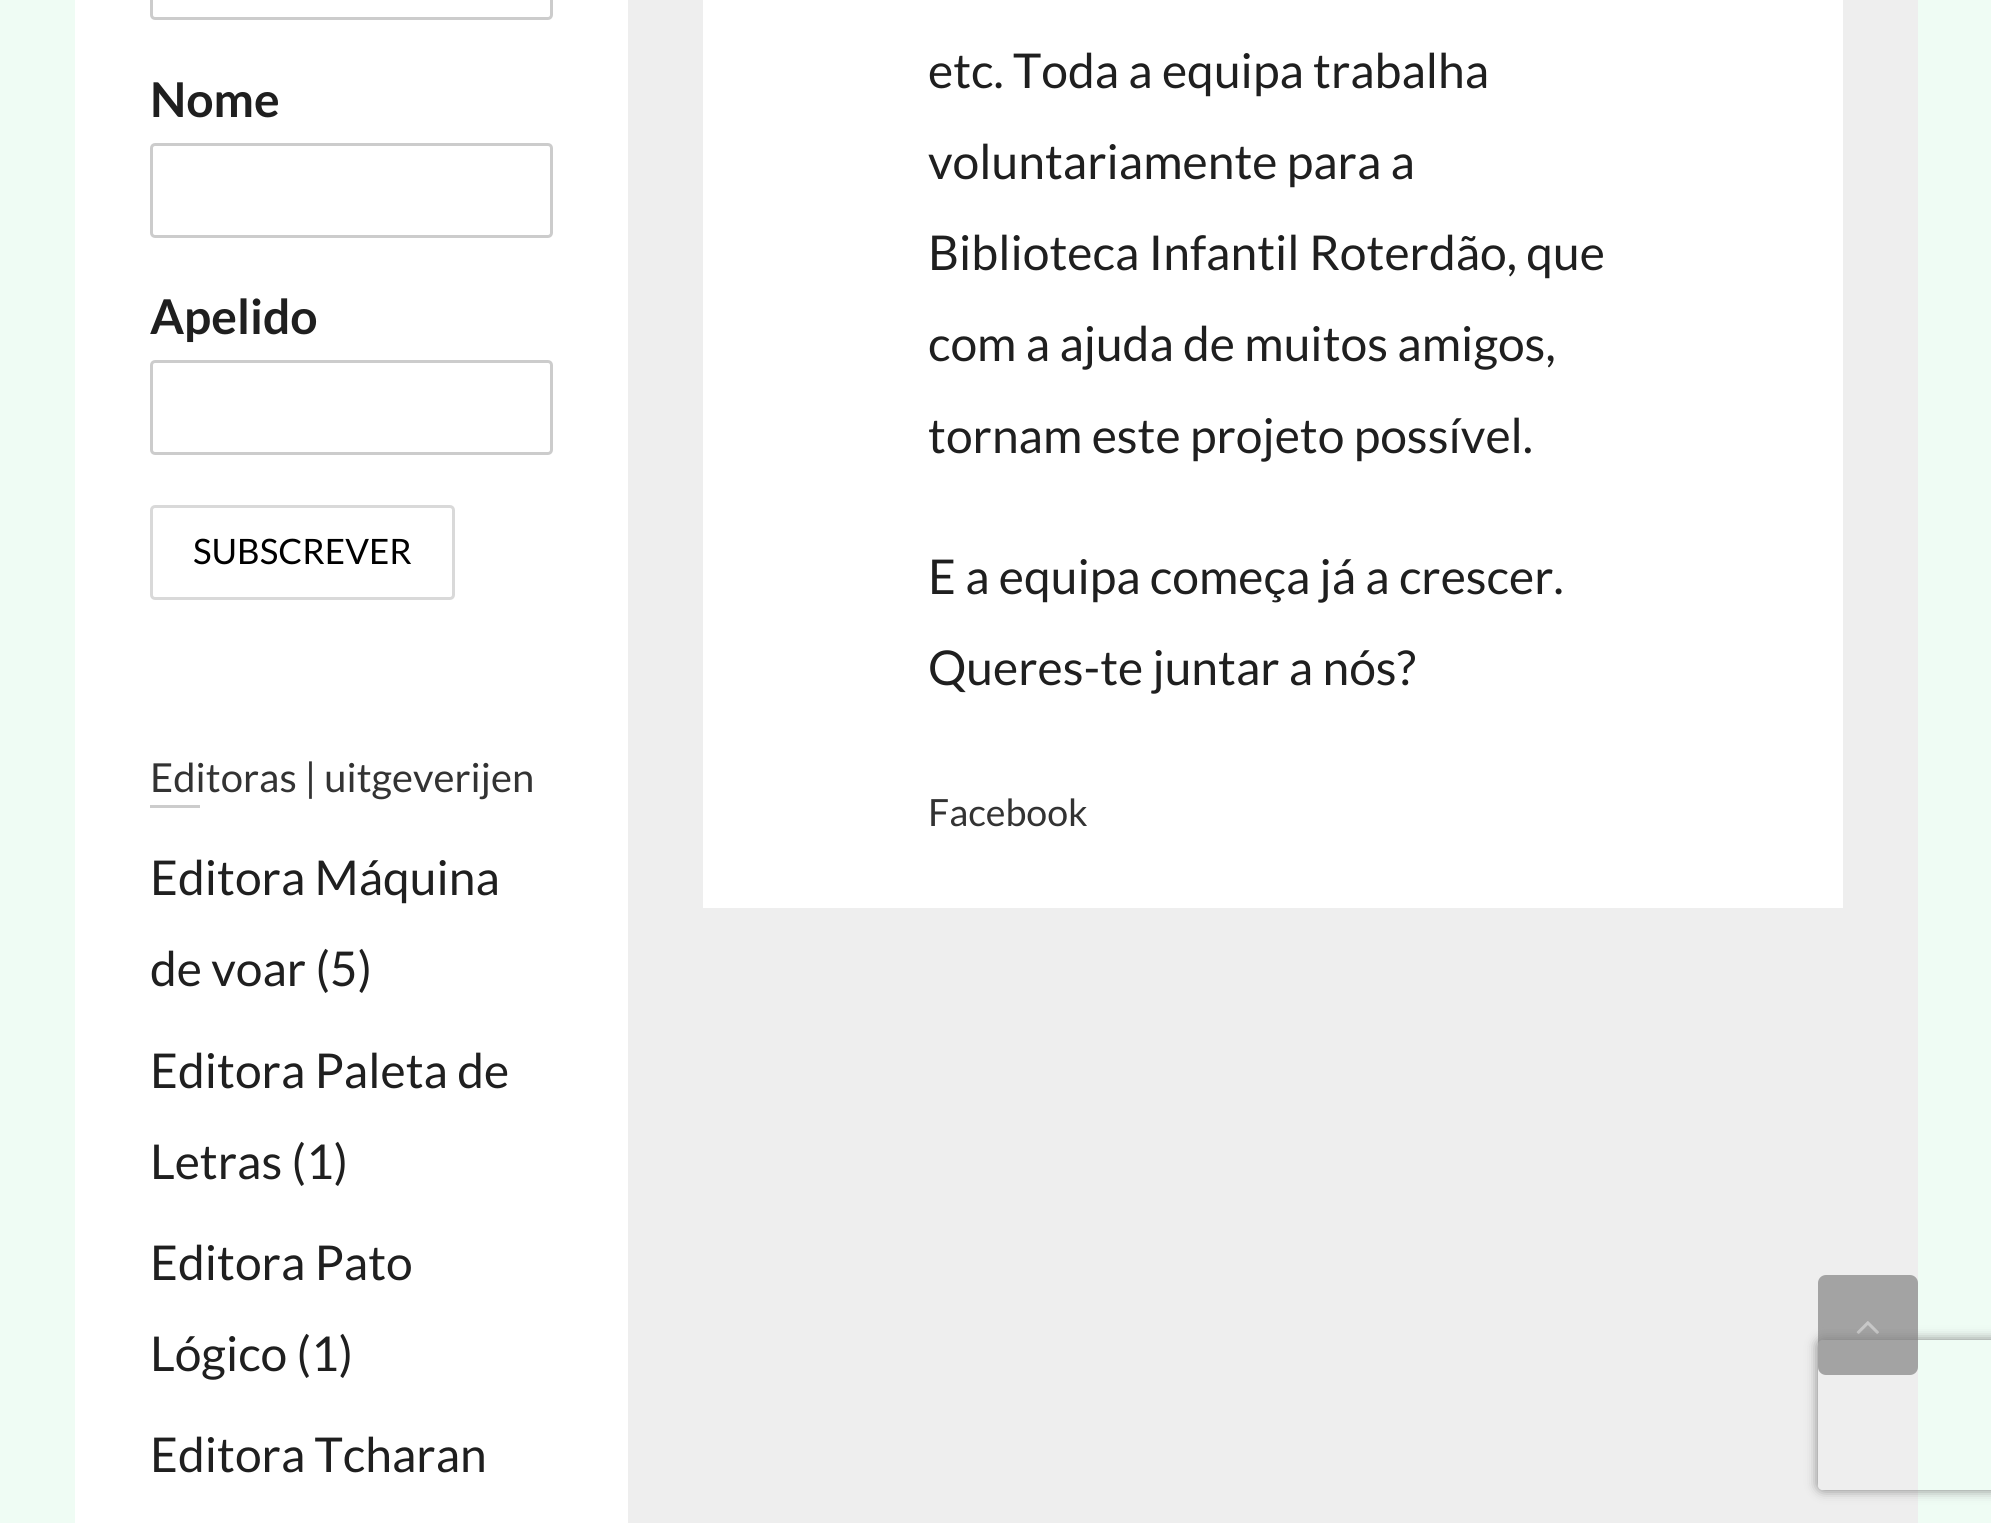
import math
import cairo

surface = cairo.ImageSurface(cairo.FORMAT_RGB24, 1991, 1523)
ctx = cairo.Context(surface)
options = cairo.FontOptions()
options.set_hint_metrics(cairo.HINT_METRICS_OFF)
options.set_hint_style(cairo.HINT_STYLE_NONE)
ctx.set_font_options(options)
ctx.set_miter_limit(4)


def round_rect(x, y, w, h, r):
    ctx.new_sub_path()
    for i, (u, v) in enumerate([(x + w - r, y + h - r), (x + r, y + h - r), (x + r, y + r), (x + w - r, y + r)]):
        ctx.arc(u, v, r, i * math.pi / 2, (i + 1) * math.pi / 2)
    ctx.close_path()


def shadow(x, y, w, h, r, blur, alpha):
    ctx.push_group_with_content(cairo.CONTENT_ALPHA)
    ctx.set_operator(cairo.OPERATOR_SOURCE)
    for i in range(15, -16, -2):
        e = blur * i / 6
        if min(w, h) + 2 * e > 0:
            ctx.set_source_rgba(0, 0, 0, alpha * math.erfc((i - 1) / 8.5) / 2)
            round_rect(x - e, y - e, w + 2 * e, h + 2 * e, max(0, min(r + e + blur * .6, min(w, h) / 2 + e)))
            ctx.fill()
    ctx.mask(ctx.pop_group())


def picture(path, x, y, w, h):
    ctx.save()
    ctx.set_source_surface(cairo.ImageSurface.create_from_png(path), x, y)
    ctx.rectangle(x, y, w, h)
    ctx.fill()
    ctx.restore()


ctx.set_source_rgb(0.937, 0.988, 0.957)
ctx.paint()
ctx.set_source_rgb(0.933, 0.933, 0.933)
ctx.rectangle(628, 0, 1290, 1523)
ctx.fill()
ctx.set_source_rgb(1, 1, 1)
ctx.rectangle(75, 0, 553, 1523)
ctx.fill()
ctx.rectangle(703, 0, 1140, 908)
ctx.fill()
ctx.select_font_face("Lato")
ctx.set_font_size(48)
ctx.set_source_rgb(0.122, 0.122, 0.122)
ctx.move_to(928, 88)
ctx.show_text("etc. Toda a equipa trabalha")
ctx.move_to(928, 179)
ctx.show_text("voluntariamente para a")
ctx.move_to(928, 270)
ctx.show_text("Biblioteca Infantil Roterdão, que")
ctx.move_to(928, 361)
ctx.show_text("com a ajuda de muitos amigos,")
ctx.move_to(928, 453)
ctx.show_text("tornam este projeto possível.")
ctx.move_to(928, 594)
ctx.show_text("E a equipa começa já a crescer.")
ctx.move_to(928, 685)
ctx.show_text("Queres-te juntar a nós?")
ctx.set_font_size(37.5)
ctx.set_source_rgb(0.2, 0.2, 0.2)
ctx.move_to(928, 826)
ctx.show_text("Facebook")
round_rect(151.5, -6.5, 400, 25, 3.5)
ctx.set_source_rgb(0.8, 0.8, 0.8)
ctx.set_line_width(3)
ctx.stroke()
ctx.select_font_face("Lato", cairo.FONT_SLANT_NORMAL, cairo.FONT_WEIGHT_BOLD)
ctx.set_font_size(48)
ctx.set_source_rgb(0.122, 0.122, 0.122)
ctx.move_to(150, 117)
ctx.show_text("Nome")
round_rect(151.5, 144.5, 400, 92, 3.5)
ctx.set_source_rgb(0.8, 0.8, 0.8)
ctx.stroke()
ctx.set_source_rgb(0.122, 0.122, 0.122)
ctx.move_to(150, 334)
ctx.show_text("Apelido")
round_rect(151.5, 361.5, 400, 92, 3.5)
ctx.set_source_rgb(0.8, 0.8, 0.8)
ctx.stroke()
round_rect(151.5, 506.5, 302, 92, 3.5)
ctx.set_source_rgb(0.851, 0.851, 0.851)
ctx.stroke()
ctx.select_font_face("Lato")
ctx.set_font_size(35)
ctx.set_source_rgb(0, 0, 0)
ctx.move_to(193, 564)
ctx.show_text("SUBSCREVER")
ctx.set_font_size(40)
ctx.set_source_rgb(0.2, 0.2, 0.2)
ctx.move_to(150, 792)
ctx.show_text("Editoras | uitgeverijen")
ctx.set_source_rgb(0.8, 0.8, 0.8)
ctx.rectangle(150, 805, 50, 3)
ctx.fill()
ctx.set_font_size(48)
ctx.set_source_rgb(0.122, 0.122, 0.122)
ctx.move_to(150, 895)
ctx.show_text("Editora Máquina")
ctx.move_to(150, 986)
ctx.show_text("de voar (5)")
ctx.move_to(150, 1088)
ctx.show_text("Editora Paleta de")
ctx.move_to(150, 1179)
ctx.show_text("Letras (1)")
ctx.move_to(150, 1280)
ctx.show_text("Editora Pato")
ctx.move_to(150, 1371)
ctx.show_text("Lógico (1)")
ctx.move_to(150, 1472)
ctx.show_text("Editora Tcharan")
ctx.set_source_rgb(0.639, 0.639, 0.639)
round_rect(1818, 1275, 100, 100, 8)
ctx.fill()
picture("img1.png", 1856, 1321, 23, 13)
ctx.save()
ctx.set_fill_rule(cairo.FILL_RULE_EVEN_ODD)
ctx.new_path()
ctx.move_to(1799, 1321)
ctx.line_to(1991, 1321)
ctx.line_to(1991, 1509)
ctx.line_to(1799, 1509)
ctx.close_path()
ctx.move_to(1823, 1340)
ctx.line_to(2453, 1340)
ctx.curve_to(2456, 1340, 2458, 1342, 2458, 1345)
ctx.line_to(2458, 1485)
ctx.curve_to(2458, 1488, 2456, 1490, 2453, 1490)
ctx.line_to(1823, 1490)
ctx.curve_to(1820, 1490, 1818, 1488, 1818, 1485)
ctx.line_to(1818, 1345)
ctx.curve_to(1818, 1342, 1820, 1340, 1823, 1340)
ctx.close_path()
ctx.clip()
ctx.set_source_rgb(0.502, 0.502, 0.502)
shadow(1818, 1340, 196, 150, 5, 6, 1)
ctx.restore()
surface.write_to_png("page.png")
